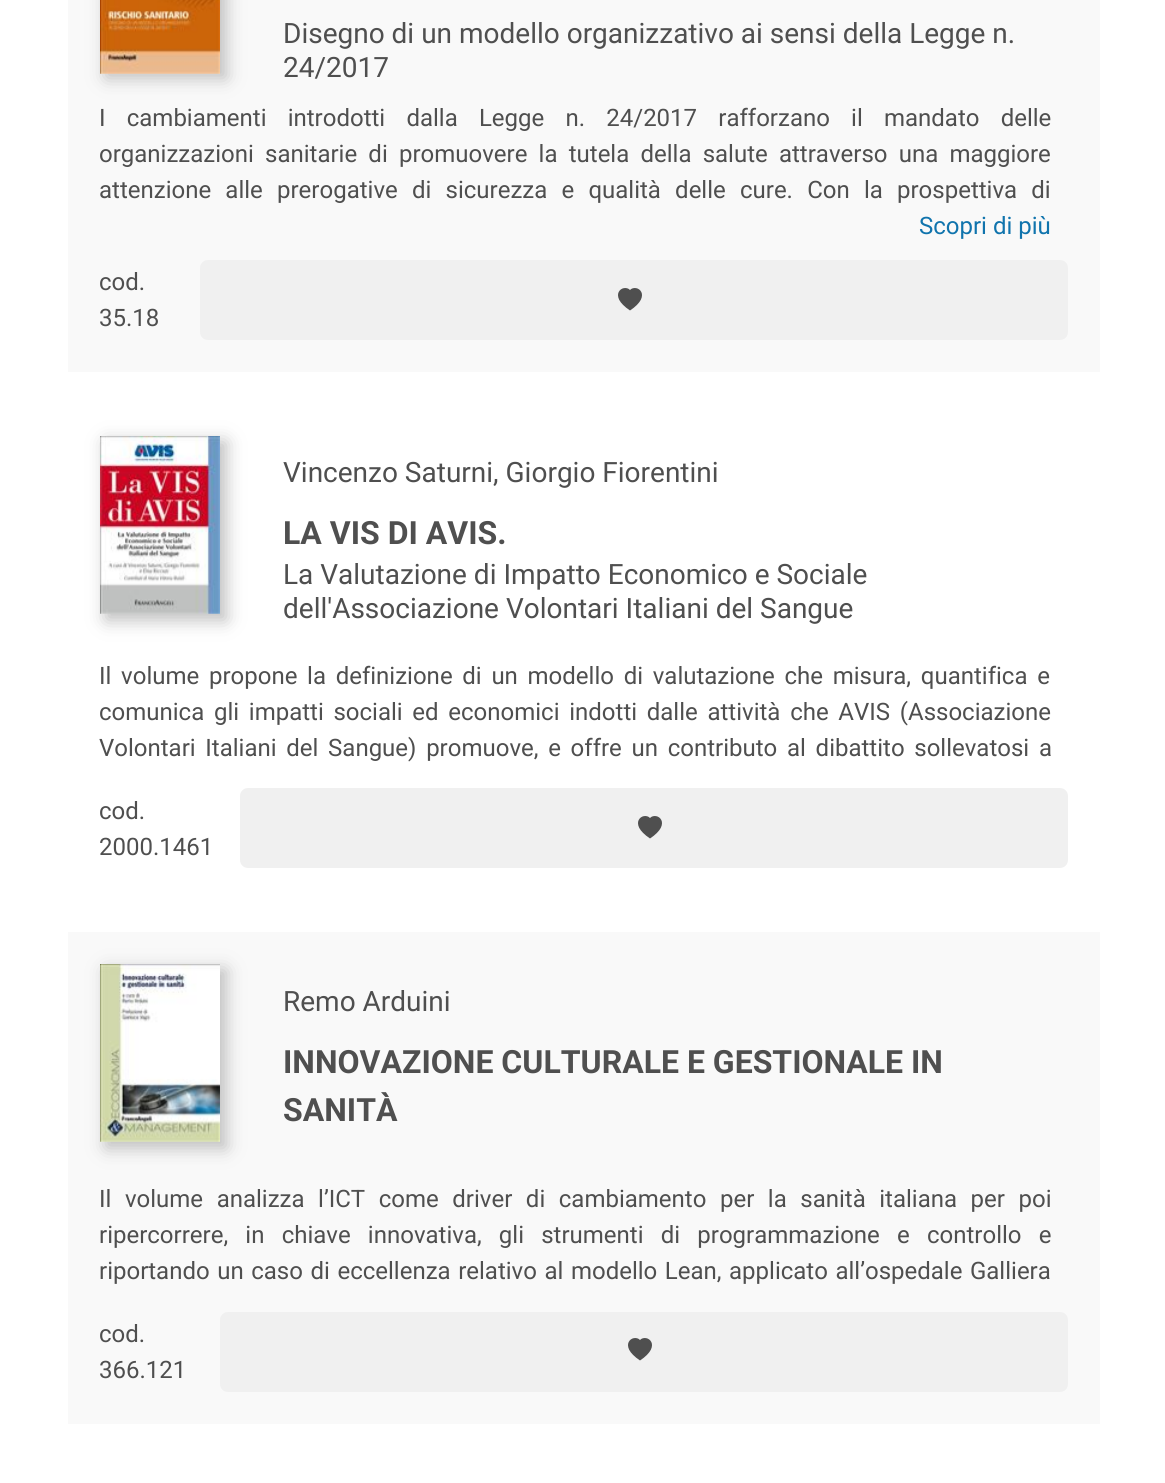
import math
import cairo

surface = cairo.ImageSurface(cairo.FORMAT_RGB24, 1165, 1483)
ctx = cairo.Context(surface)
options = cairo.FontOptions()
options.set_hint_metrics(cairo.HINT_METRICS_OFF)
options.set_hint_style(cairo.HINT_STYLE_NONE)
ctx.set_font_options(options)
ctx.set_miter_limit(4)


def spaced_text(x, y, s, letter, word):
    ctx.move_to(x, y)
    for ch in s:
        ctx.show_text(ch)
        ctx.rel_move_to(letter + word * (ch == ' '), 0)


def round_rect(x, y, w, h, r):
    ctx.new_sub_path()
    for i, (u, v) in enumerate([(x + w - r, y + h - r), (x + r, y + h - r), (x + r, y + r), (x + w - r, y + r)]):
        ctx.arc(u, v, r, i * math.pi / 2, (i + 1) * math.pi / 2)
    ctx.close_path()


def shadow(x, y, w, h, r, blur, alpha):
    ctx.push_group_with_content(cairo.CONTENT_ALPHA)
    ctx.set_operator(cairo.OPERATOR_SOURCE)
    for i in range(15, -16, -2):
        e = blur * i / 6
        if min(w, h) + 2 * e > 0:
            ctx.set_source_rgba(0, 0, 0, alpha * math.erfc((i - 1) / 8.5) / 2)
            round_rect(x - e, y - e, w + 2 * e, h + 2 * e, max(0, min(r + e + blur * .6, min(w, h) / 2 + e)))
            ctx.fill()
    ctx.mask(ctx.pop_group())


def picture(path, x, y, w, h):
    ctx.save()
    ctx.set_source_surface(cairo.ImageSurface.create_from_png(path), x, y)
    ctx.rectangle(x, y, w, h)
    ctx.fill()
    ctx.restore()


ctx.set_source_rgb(1, 1, 1)
ctx.paint()
ctx.set_source_rgb(0.973, 0.973, 0.973)
ctx.rectangle(68, 0, 1032, 372)
ctx.fill()
ctx.set_source_rgb(0.741, 0.741, 0.741)
shadow(106, -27, 120, 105, 0, 9, 1)
picture("img1.png", 100, 0, 120, 74)
ctx.select_font_face("Roboto")
ctx.set_font_size(28)
ctx.set_source_rgb(0.31, 0.31, 0.31)
ctx.move_to(283, 43)
ctx.show_text("Disegno di un modello organizzativo ai sensi della Legge n.")
ctx.move_to(283, 77)
ctx.show_text("24/2017")
ctx.set_font_size(24)
spaced_text(99, 126, "I cambiamenti introdotti dalla Legge n. 24/2017 rafforzano il mandato delle", 0, 15.25)
spaced_text(99, 162, "organizzazioni sanitarie di promuovere la tutela della salute attraverso una maggiore", 0, 5.25)
spaced_text(99, 198, "attenzione alle prerogative di sicurezza e qualità delle cure. Con la prospettiva di", 0, 8.25)
ctx.set_source_rgb(0.063, 0.455, 0.678)
ctx.move_to(919, 234)
ctx.show_text("Scopri di più")
ctx.set_source_rgb(0.31, 0.31, 0.31)
ctx.move_to(99, 290)
ctx.show_text("cod.")
ctx.move_to(99, 326)
ctx.show_text("35.18")
ctx.set_source_rgb(0.941, 0.941, 0.941)
round_rect(200, 260, 868, 80, 8)
ctx.fill()
picture("img2.png", 618, 288, 24, 23)
ctx.set_source_rgb(0.741, 0.741, 0.741)
shadow(106, 442, 120, 178, 0, 9, 1)
picture("img3.png", 100, 436, 120, 178)
ctx.set_font_size(28)
ctx.set_source_rgb(0.31, 0.31, 0.31)
ctx.move_to(283, 482)
ctx.show_text("Vincenzo Saturni, Giorgio Fiorentini")
ctx.select_font_face("Roboto", cairo.FONT_SLANT_NORMAL, cairo.FONT_WEIGHT_BOLD)
ctx.set_font_size(32)
ctx.move_to(283, 544)
ctx.show_text("LA VIS DI AVIS.")
ctx.select_font_face("Roboto")
ctx.set_font_size(28)
ctx.move_to(283, 584)
ctx.show_text("La Valutazione di Impatto Economico e Sociale")
ctx.move_to(283, 618)
ctx.show_text("dell'Associazione Volontari Italiani del Sangue")
ctx.set_font_size(24)
spaced_text(99, 684, "Il volume propone la definizione di un modello di valutazione che misura, quantifica e", 0, 3.75)
spaced_text(99, 720, "comunica gli impatti sociali ed economici indotti dalle attività che AVIS (Associazione", 0, 3.75)
spaced_text(99, 756, "Volontari Italiani del Sangue) promuove, e offre un contributo al dibattito sollevatosi a", 0, 3.75)
ctx.move_to(99, 819)
ctx.show_text("cod.")
ctx.move_to(99, 855)
ctx.show_text("2000.1461")
ctx.set_source_rgb(0.941, 0.941, 0.941)
round_rect(240, 788, 828, 80, 8)
ctx.fill()
picture("img2.png", 638, 816, 24, 23)
ctx.set_source_rgb(0.973, 0.973, 0.973)
ctx.rectangle(68, 932, 1032, 492)
ctx.fill()
ctx.set_source_rgb(0.741, 0.741, 0.741)
shadow(106, 970, 120, 178, 0, 9, 1)
picture("img4.png", 100, 964, 120, 178)
ctx.set_font_size(28)
ctx.set_source_rgb(0.31, 0.31, 0.31)
ctx.move_to(283, 1011)
ctx.show_text("Remo Arduini")
ctx.select_font_face("Roboto", cairo.FONT_SLANT_NORMAL, cairo.FONT_WEIGHT_BOLD)
ctx.set_font_size(32)
ctx.move_to(283, 1073)
ctx.show_text("INNOVAZIONE CULTURALE E GESTIONALE IN")
ctx.move_to(283, 1121)
ctx.show_text("SANITÀ")
ctx.select_font_face("Roboto")
ctx.set_font_size(24)
spaced_text(99, 1207, "Il volume analizza l’ICT come driver di cambiamento per la sanità italiana per poi", 0, 7.6)
spaced_text(99, 1243, "ripercorrere, in chiave innovativa, gli strumenti di programmazione e controllo e", 0, 11.25)
spaced_text(99, 1279, "riportando un caso di eccellenza relativo al modello Lean, applicato all’ospedale Galliera", 0, 1.6)
ctx.move_to(99, 1342)
ctx.show_text("cod.")
ctx.move_to(99, 1378)
ctx.show_text("366.121")
ctx.set_source_rgb(0.941, 0.941, 0.941)
round_rect(220, 1312, 848, 80, 8)
ctx.fill()
picture("img2.png", 628, 1338, 24, 23)
surface.write_to_png("page.png")
